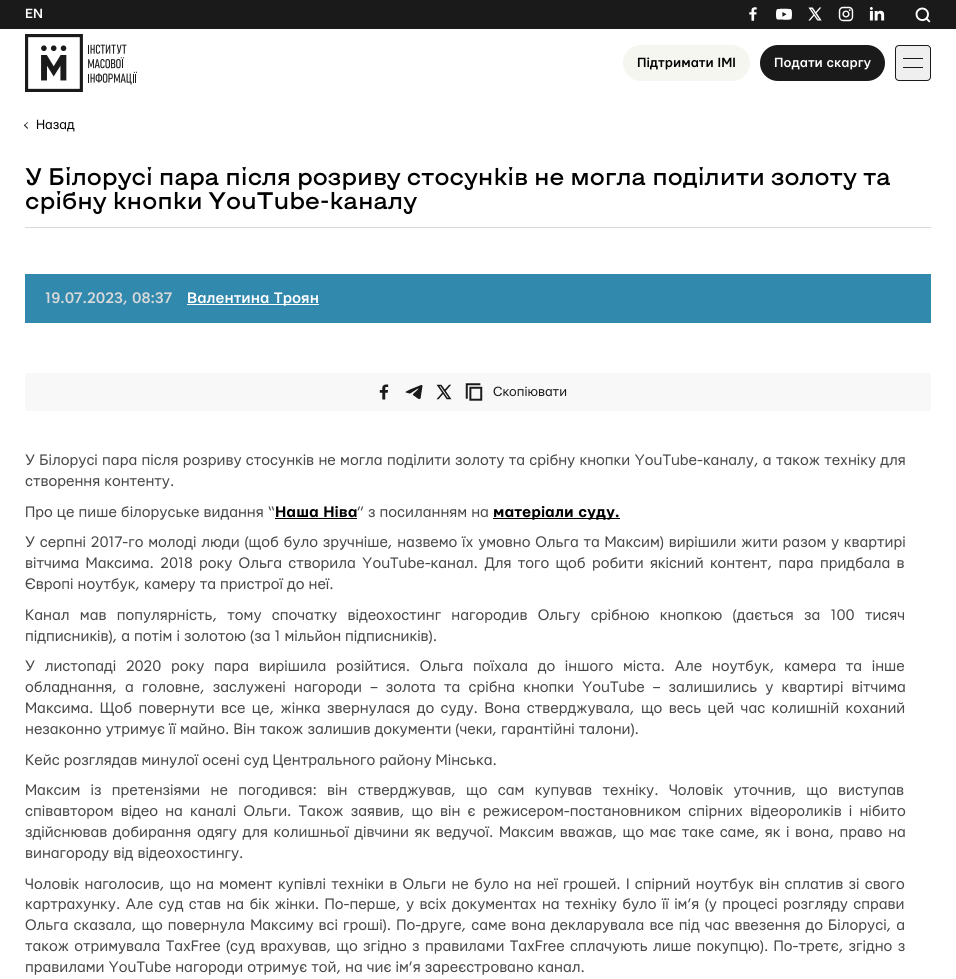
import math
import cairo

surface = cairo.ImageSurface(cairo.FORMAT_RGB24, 956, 979)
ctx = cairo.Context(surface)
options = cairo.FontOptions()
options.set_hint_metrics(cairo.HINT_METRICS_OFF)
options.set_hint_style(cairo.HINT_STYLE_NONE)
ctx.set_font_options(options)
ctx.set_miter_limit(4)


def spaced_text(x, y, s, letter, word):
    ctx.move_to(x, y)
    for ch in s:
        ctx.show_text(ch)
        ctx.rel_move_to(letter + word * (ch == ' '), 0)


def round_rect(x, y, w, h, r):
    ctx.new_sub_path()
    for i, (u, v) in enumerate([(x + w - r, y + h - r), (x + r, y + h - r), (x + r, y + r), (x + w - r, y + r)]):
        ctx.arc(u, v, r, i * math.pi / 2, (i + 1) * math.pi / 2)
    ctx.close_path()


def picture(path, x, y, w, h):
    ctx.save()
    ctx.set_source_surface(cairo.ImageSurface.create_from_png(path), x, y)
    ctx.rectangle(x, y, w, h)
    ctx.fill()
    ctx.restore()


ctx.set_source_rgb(1, 1, 1)
ctx.paint()
ctx.set_source_rgb(0.102, 0.102, 0.102)
ctx.rectangle(0, 0, 956, 29)
ctx.fill()
ctx.select_font_face("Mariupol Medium")
ctx.set_font_size(14)
ctx.set_source_rgb(1, 1, 1)
ctx.move_to(25, 18)
ctx.show_text("EN")
picture("img1.png", 749, 7, 8, 14)
picture("img2.png", 776, 8, 16, 12)
picture("img3.png", 808, 7, 14, 14)
picture("img4.png", 838, 6, 16, 16)
picture("img5.png", 869, 7, 16, 14)
picture("img6.png", 915, 7, 16, 16)
picture("img7.png", 25, 34, 112, 58)
ctx.set_source_rgb(0.961, 0.961, 0.941)
round_rect(623, 45, 127, 36, 18)
ctx.fill()
ctx.set_source_rgb(0, 0.004, 0)
ctx.move_to(637, 67)
ctx.show_text("Підтримати ІМІ")
ctx.set_source_rgb(0.102, 0.102, 0.102)
round_rect(760, 45, 125, 36, 18)
ctx.fill()
ctx.set_source_rgb(1, 1, 1)
ctx.move_to(774, 67)
ctx.show_text("Подати скаргу")
ctx.set_source_rgb(0.937, 0.937, 0.937)
round_rect(895.5, 45.5, 35, 35, 3.5)
ctx.fill_preserve()
ctx.set_source_rgb(0.102, 0.102, 0.102)
ctx.set_line_width(1)
ctx.stroke()
ctx.rectangle(903, 58, 20, 1)
ctx.fill()
ctx.rectangle(903, 67, 20, 1)
ctx.fill()
ctx.new_path()
ctx.move_to(24, 125.5)
ctx.line_to(27.5, 122)
ctx.line_to(28, 122.5)
ctx.line_to(24.5, 126)
ctx.close_path()
ctx.fill()
ctx.new_path()
ctx.move_to(24, 125.5)
ctx.line_to(24.5, 124.5)
ctx.line_to(28, 128)
ctx.line_to(27.5, 129)
ctx.close_path()
ctx.fill()
ctx.select_font_face("Mariupol")
ctx.set_source_rgb(0, 0.004, 0)
ctx.move_to(36, 129)
ctx.show_text("Назад")
ctx.set_source_rgb(0.851, 0.851, 0.851)
ctx.rectangle(25, 227, 906, 1)
ctx.fill()
ctx.select_font_face("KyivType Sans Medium")
ctx.set_font_size(24)
ctx.set_source_rgb(0, 0.004, 0)
ctx.move_to(25, 185)
ctx.show_text("У Білорусі пара після розриву стосунків не могла поділити золоту та")
ctx.move_to(25, 209)
ctx.show_text("срібну кнопки YouTube-каналу")
ctx.set_source_rgb(0.196, 0.537, 0.682)
ctx.rectangle(25, 274, 906, 49)
ctx.fill()
ctx.select_font_face("Mariupol Medium")
ctx.set_font_size(16)
ctx.set_source_rgb(0.851, 0.851, 0.851)
ctx.move_to(45, 303)
ctx.show_text("19.07.2023, 08:37")
ctx.set_source_rgb(1, 1, 1)
ctx.rectangle(187, 304, 132, 1)
ctx.fill()
ctx.move_to(187, 303)
ctx.show_text("Валентина Троян")
ctx.set_source_rgb(0.969, 0.969, 0.969)
ctx.rectangle(25, 373, 906, 38)
ctx.fill()
picture("img8.png", 379, 384, 10, 16)
picture("img9.png", 405, 385, 18, 14)
picture("img10.png", 436, 384, 16, 16)
picture("img11.png", 465, 383, 18, 18)
ctx.select_font_face("Mariupol")
ctx.set_font_size(14)
ctx.set_source_rgb(0.102, 0.102, 0.102)
ctx.move_to(493, 396)
ctx.show_text("Скопіювати")
ctx.set_font_size(16)
ctx.set_source_rgb(0.282, 0.282, 0.282)
spaced_text(25, 465, "У Білорусі пара після розриву стосунків не могла поділити золоту та срібну кнопки YouTube-каналу, а також техніку для", 0, 0.25)
ctx.move_to(25, 486)
ctx.show_text("створення контенту.")
ctx.move_to(25, 517)
ctx.show_text("Про це пише білоруське видання “")
ctx.select_font_face("Mariupol", cairo.FONT_SLANT_NORMAL, cairo.FONT_WEIGHT_BOLD)
ctx.set_source_rgb(0, 0.004, 0)
ctx.move_to(275, 517)
ctx.show_text("Наша Ніва")
ctx.rectangle(275, 518, 82, 1)
ctx.fill()
ctx.select_font_face("Mariupol")
ctx.set_source_rgb(0.282, 0.282, 0.282)
ctx.move_to(357, 517)
ctx.show_text("” з посиланням на")
ctx.set_source_rgb(0, 0.004, 0)
ctx.rectangle(493, 518, 127, 1)
ctx.fill()
ctx.select_font_face("Mariupol", cairo.FONT_SLANT_NORMAL, cairo.FONT_WEIGHT_BOLD)
ctx.move_to(493, 517)
ctx.show_text("матеріали суду.")
ctx.select_font_face("Mariupol")
ctx.set_source_rgb(0.282, 0.282, 0.282)
spaced_text(25, 547, "У серпні 2017-го молоді люди (щоб було зручніше, назвемо їх умовно Ольга та Максим) вирішили жити разом у квартирі", 0, 0.7)
spaced_text(25, 568, "вітчима Максима. 2018 року Ольга створила YouTube-канал. Для того щоб робити якісний контент, пара придбала в", 0, 2.25)
ctx.move_to(25, 589)
ctx.show_text("Європі ноутбук, камеру та пристрої до неї.")
spaced_text(25, 620, "Канал мав популярність, тому спочатку відеохостинг нагородив Ольгу срібною кнопкою (дається за 100 тисяч", 0, 6.25)
ctx.move_to(25, 641)
ctx.show_text("підписників), а потім і золотою (за 1 мільйон підписників).")
spaced_text(25, 671, "У листопаді 2020 року пара вирішила розійтися. Ольга поїхала до іншого міста. Але ноутбук, камера та інше", 0, 5.6)
spaced_text(25, 692, "обладнання, а головне, заслужені нагороди – золота та срібна кнопки YouTube – залишились у квартирі вітчима", 0, 4.1)
spaced_text(25, 713, "Максима. Щоб повернути все це, жінка звернулася до суду. Вона стверджувала, що весь цей час колишній коханий", 0, 2.4)
ctx.move_to(25, 734)
ctx.show_text("незаконно утримує її майно. Він також залишив документи (чеки, гарантійні талони).")
ctx.move_to(25, 765)
ctx.show_text("Кейс розглядав минулої осені суд Центрального району Мінська.")
spaced_text(25, 795, "Максим із претензіями не погодився: він стверджував, що сам купував техніку. Чоловік уточнив, що виступав", 0, 6.25)
spaced_text(25, 816, "співавтором відео на каналі Ольги. Також заявив, що він є режисером-постановником спірних відеороликів і нібито", 0, 3.1)
spaced_text(25, 837, "здійснював добирання одягу для колишньої дівчини як ведучої. Максим вважав, що має таке саме, як і вона, право на", 0, 1.5)
ctx.move_to(25, 858)
ctx.show_text("винагороду від відеохостингу.")
spaced_text(25, 889, "Чоловік наголосив, що на момент купівлі техніки в Ольги не було на неї грошей. І спірний ноутбук він сплатив зі свого", 0, 1.25)
spaced_text(25, 909, "картрахунку. Але суд став на бік жінки. По-перше, у всіх документах на техніку було її ім’я (у процесі розгляду справи", 0, 1.3)
spaced_text(25, 930, "Ольга сказала, що повернула Максиму всі гроші). По-друге, саме вона декларувала все під час ввезення до Білорусі, а", 0, 1)
spaced_text(25, 951, "також отримувала TaxFree (суд врахував, що згідно з правилами TaxFree сплачують лише покупцю). По-третє, згідно з", 0, 1.25)
ctx.move_to(25, 972)
ctx.show_text("правилами YouTube нагороди отримує той, на чиє ім’я зареєстровано канал.")
surface.write_to_png("page.png")
